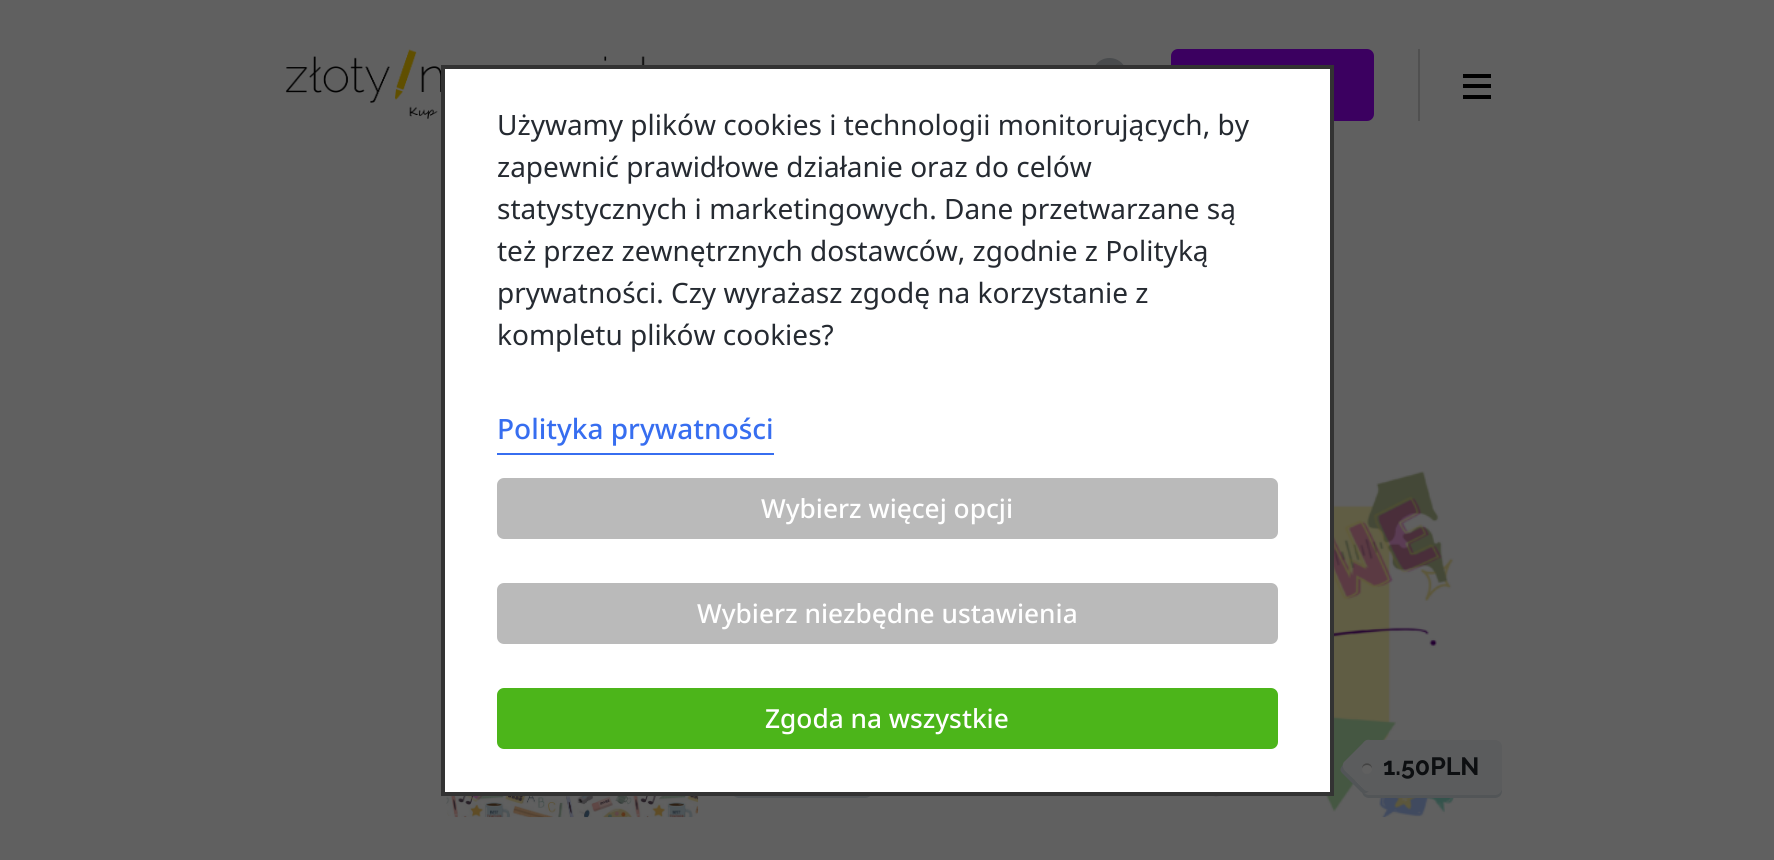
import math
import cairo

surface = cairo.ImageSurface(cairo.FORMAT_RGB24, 1774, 860)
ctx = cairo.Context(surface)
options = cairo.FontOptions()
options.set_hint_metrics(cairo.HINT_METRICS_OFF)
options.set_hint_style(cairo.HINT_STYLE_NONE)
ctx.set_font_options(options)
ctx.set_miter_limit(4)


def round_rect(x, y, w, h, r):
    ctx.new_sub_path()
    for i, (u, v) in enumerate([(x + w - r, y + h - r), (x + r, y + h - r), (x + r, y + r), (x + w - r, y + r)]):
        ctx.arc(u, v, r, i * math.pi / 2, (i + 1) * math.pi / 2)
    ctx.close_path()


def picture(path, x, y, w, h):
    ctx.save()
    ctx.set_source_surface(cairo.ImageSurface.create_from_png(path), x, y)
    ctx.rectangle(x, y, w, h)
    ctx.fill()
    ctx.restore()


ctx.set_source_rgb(0.376, 0.376, 0.376)
ctx.paint()
picture("img1.png", 285, 49, 360, 70)
ctx.set_source_rgb(0.286, 0.294, 0.302)
ctx.arc(1109.5, 75.5, 17.5, 0, 2 * math.pi)
ctx.fill()
ctx.set_source_rgb(0.231, 0, 0.376)
round_rect(1172, 50, 201, 70, 6)
ctx.fill_preserve()
ctx.stroke()
picture("img2.png", 950, 460, 505, 358)
ctx.set_source_rgb(0.322, 0.333, 0.341)
ctx.new_path()
ctx.move_to(732, 790)
ctx.line_to(732, 791)
ctx.curve_to(732, 795, 735, 798, 739, 798)
ctx.line_to(865, 798)
ctx.curve_to(869, 798, 872, 795, 872, 791)
ctx.line_to(872, 751)
ctx.line_to(872, 748)
ctx.line_to(872, 788)
ctx.curve_to(872, 791, 868, 794, 864, 794)
ctx.line_to(738, 794)
ctx.curve_to(736, 794, 733, 793, 732, 790)
ctx.close_path()
ctx.fill()
ctx.set_source_rgb(1, 1, 1)
ctx.rectangle(443, 67, 889, 727)
ctx.fill_preserve()
ctx.set_source_rgb(0.2, 0.2, 0.2)
ctx.set_line_width(4)
ctx.stroke()
ctx.select_font_face("Noto Sans")
ctx.set_font_size(28)
ctx.set_source_rgb(0.145, 0.165, 0.192)
ctx.move_to(497, 135)
ctx.show_text("Używamy plików cookies i technologii monitorujących, by")
ctx.move_to(497, 177)
ctx.show_text("zapewnić prawidłowe działanie oraz do celów")
ctx.move_to(497, 219)
ctx.show_text("statystycznych i marketingowych. Dane przetwarzane są")
ctx.move_to(497, 261)
ctx.show_text("też przez zewnętrznych dostawców, zgodnie z Polityką")
ctx.move_to(497, 303)
ctx.show_text("prywatności. Czy wyrażasz zgodę na korzystanie z")
ctx.move_to(497, 345)
ctx.show_text("kompletu plików cookies?")
ctx.select_font_face("Noto Sans Medium")
ctx.set_source_rgb(0.216, 0.431, 0.941)
ctx.move_to(497, 439)
ctx.show_text("Polityka prywatności")
ctx.rectangle(497, 453, 277, 2)
ctx.fill()
ctx.set_source_rgb(0.729, 0.729, 0.729)
round_rect(497, 478, 781, 61, 7)
ctx.fill()
ctx.set_font_size(26.25)
ctx.set_source_rgb(1, 1, 1)
ctx.move_to(761, 518)
ctx.show_text("Wybierz więcej opcji")
ctx.set_source_rgb(0.729, 0.729, 0.729)
round_rect(497, 583, 781, 61, 7)
ctx.fill()
ctx.set_source_rgb(1, 1, 1)
ctx.move_to(697, 623)
ctx.show_text("Wybierz niezbędne ustawienia")
ctx.set_source_rgb(0.298, 0.71, 0.102)
round_rect(497, 688, 781, 61, 7)
ctx.fill()
ctx.set_source_rgb(1, 1, 1)
ctx.move_to(765, 728)
ctx.show_text("Zgoda na wszystkie")
ctx.set_source_rgb(0.314, 0.314, 0.314)
ctx.rectangle(1418, 49, 2, 72)
ctx.fill()
ctx.set_source_rgb(0, 0, 0)
ctx.rectangle(1463, 74, 28, 4)
ctx.fill()
ctx.rectangle(1463, 84, 28, 4)
ctx.fill()
ctx.rectangle(1463, 95, 28, 4)
ctx.fill()
ctx.set_source_rgb(0.322, 0.333, 0.341)
ctx.new_path()
ctx.move_to(1362, 790)
ctx.line_to(1362, 791)
ctx.curve_to(1362, 795, 1365, 798, 1369, 798)
ctx.line_to(1495, 798)
ctx.curve_to(1499, 798, 1502, 795, 1502, 791)
ctx.line_to(1502, 751)
ctx.line_to(1502, 748)
ctx.line_to(1502, 788)
ctx.curve_to(1502, 791, 1498, 794, 1494, 794)
ctx.line_to(1368, 794)
ctx.curve_to(1366, 794, 1363, 793, 1362, 790)
ctx.close_path()
ctx.fill()
ctx.set_source_rgb(0.357, 0.361, 0.365)
round_rect(1362, 740, 140, 55, 7)
ctx.fill()
ctx.set_source_rgb(0.322, 0.333, 0.341)
ctx.new_path()
ctx.move_to(1343, 765)
ctx.curve_to(1338, 770, 1341, 772, 1345, 776)
ctx.line_to(1358, 789)
ctx.curve_to(1361.5, 792.5, 1364, 796, 1369, 791)
ctx.curve_to(1367, 791.5, 1365, 790.5, 1363.5, 789)
ctx.line_to(1345, 770.5)
ctx.curve_to(1343.5, 769, 1343, 767, 1343, 765)
ctx.close_path()
ctx.fill()
ctx.set_source_rgb(0.357, 0.361, 0.365)
ctx.new_path()
ctx.move_to(1373, 742)
ctx.line_to(1392, 761)
ctx.curve_to(1395, 763, 1395, 768, 1392, 771)
ctx.line_to(1373, 789)
ctx.curve_to(1371, 792, 1366, 792, 1364, 789)
ctx.line_to(1345, 771)
ctx.curve_to(1342, 768, 1342, 763, 1345, 761)
ctx.line_to(1364, 742)
ctx.curve_to(1366, 739, 1371, 739, 1373, 742)
ctx.close_path()
ctx.fill()
ctx.select_font_face("Raleway", cairo.FONT_SLANT_NORMAL, cairo.FONT_WEIGHT_BOLD)
ctx.set_font_size(25)
ctx.set_source_rgb(0.051, 0.059, 0.067)
ctx.move_to(1383, 775)
ctx.show_text("1.50PLN")
ctx.set_source_rgb(0.376, 0.376, 0.376)
round_rect(1362, 763, 10, 11, 5)
ctx.fill()
ctx.set_source_rgba(0, 0, 0, 0.3)
ctx.new_path()
ctx.move_to(1367, 765)
ctx.curve_to(1369.5, 765, 1371.5, 766.5, 1372, 768.5)
ctx.curve_to(1372, 761.5, 1362, 761.5, 1362, 768.5)
ctx.curve_to(1362.5, 766.5, 1364.5, 765, 1367, 765)
ctx.close_path()
ctx.fill()
picture("img3.png", 446, 796, 253, 22)
surface.write_to_png("page.png")
